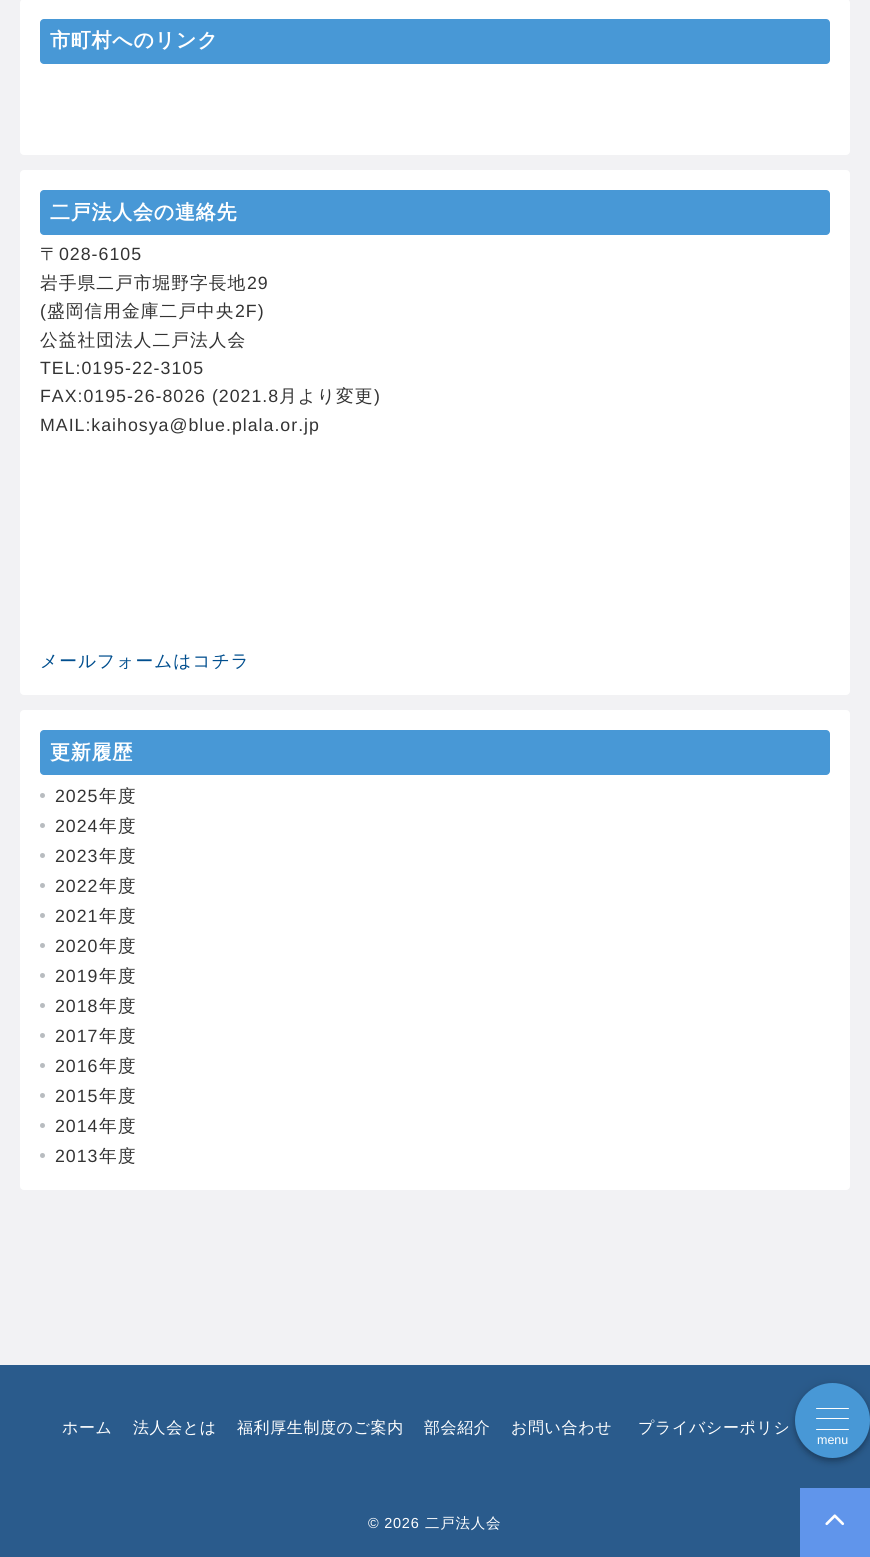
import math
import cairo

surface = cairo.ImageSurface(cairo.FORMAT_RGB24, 870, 1557)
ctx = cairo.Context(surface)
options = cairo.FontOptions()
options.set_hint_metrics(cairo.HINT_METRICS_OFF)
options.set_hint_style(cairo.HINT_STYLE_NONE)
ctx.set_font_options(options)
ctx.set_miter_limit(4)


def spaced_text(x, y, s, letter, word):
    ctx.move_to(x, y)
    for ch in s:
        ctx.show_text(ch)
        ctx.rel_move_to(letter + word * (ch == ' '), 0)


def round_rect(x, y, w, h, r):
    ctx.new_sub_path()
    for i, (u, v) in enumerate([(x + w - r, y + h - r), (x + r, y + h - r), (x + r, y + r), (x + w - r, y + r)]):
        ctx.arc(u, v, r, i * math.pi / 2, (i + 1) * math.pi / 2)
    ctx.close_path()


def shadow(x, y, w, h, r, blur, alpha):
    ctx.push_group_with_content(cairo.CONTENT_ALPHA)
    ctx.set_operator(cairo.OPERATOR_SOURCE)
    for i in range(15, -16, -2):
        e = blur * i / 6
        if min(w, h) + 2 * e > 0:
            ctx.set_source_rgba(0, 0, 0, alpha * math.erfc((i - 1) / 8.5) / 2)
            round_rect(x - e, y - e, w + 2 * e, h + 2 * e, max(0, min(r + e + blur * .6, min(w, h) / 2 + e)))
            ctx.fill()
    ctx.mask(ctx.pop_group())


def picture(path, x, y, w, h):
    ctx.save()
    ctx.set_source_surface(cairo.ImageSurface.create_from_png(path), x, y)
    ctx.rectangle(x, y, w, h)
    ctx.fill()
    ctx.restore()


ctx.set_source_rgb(0.949, 0.949, 0.957)
ctx.paint()
ctx.set_source_rgb(1, 1, 1)
round_rect(20, -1, 830, 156, 4)
ctx.fill()
ctx.set_source_rgb(0.282, 0.596, 0.839)
round_rect(40, 19, 790, 45, 4)
ctx.fill()
ctx.select_font_face("WenQuanYi Zen Hei", cairo.FONT_SLANT_NORMAL, cairo.FONT_WEIGHT_BOLD)
ctx.set_font_size(20)
ctx.set_source_rgb(1, 1, 1)
spaced_text(50, 47, "市町村へのリンク", 0.75, 0)
round_rect(20, 170, 830, 525, 4)
ctx.fill()
ctx.set_source_rgb(0.282, 0.596, 0.839)
round_rect(40, 190, 790, 45, 4)
ctx.fill()
ctx.set_source_rgb(1, 1, 1)
spaced_text(50, 219, "二戸法人会の連絡先", 0.75, 0)
ctx.select_font_face("WenQuanYi Zen Hei Medium")
ctx.set_font_size(17.75)
ctx.set_source_rgb(0.2, 0.2, 0.2)
spaced_text(40, 260, "〒", 1, 0)
ctx.select_font_face("Liberation Sans")
spaced_text(59, 260, "028-6105", 1, 0)
ctx.select_font_face("WenQuanYi Zen Hei Medium")
spaced_text(40, 289, "岩手県二戸市堀野字長地", 1, 0)
ctx.select_font_face("Liberation Sans")
spaced_text(247, 289, "29", 1, 0)
spaced_text(40, 317, "(", 1, 0)
ctx.select_font_face("WenQuanYi Zen Hei Medium")
spaced_text(47, 317, "盛岡信用金庫二戸中央", 1, 0)
ctx.select_font_face("Liberation Sans")
spaced_text(235, 317, "2F)", 1, 0)
ctx.select_font_face("WenQuanYi Zen Hei Medium")
spaced_text(40, 346, "公益社団法人二戸法人会", 1, 0)
ctx.select_font_face("Liberation Sans")
spaced_text(40, 374, "TEL:0195-22-3105", 1, 0)
spaced_text(40, 402, "FAX:0195-26-8026 (2021.8", 1, 0)
ctx.select_font_face("WenQuanYi Zen Hei Medium")
spaced_text(279, 402, "月より変更", 1, 0)
ctx.select_font_face("Liberation Sans")
spaced_text(374, 402, ")", 1, 0)
spaced_text(40, 431, "MAIL:kaihosya@blue.plala.or.jp", 1, 0)
ctx.select_font_face("WenQuanYi Zen Hei Medium")
ctx.set_source_rgb(0, 0.306, 0.557)
spaced_text(40, 667, "メールフォームはコチラ", 1, 0)
ctx.set_source_rgb(1, 1, 1)
round_rect(20, 710, 830, 480, 4)
ctx.fill()
ctx.set_source_rgb(0.282, 0.596, 0.839)
round_rect(40, 730, 790, 45, 4)
ctx.fill()
ctx.select_font_face("WenQuanYi Zen Hei", cairo.FONT_SLANT_NORMAL, cairo.FONT_WEIGHT_BOLD)
ctx.set_font_size(20)
ctx.set_source_rgb(1, 1, 1)
spaced_text(50, 759, "更新履歴", 0.75, 0)
ctx.set_source_rgb(0.722, 0.737, 0.753)
ctx.new_path()
ctx.arc(42.5, 795.5, 2.5, 0, 2 * math.pi)
ctx.fill()
ctx.select_font_face("Liberation Sans")
ctx.set_font_size(17.75)
ctx.set_source_rgb(0.2, 0.2, 0.2)
spaced_text(55, 802, "2025", 1, 0)
ctx.select_font_face("WenQuanYi Zen Hei Medium")
spaced_text(99, 802, "年度", 1, 0)
ctx.set_source_rgb(0.722, 0.737, 0.753)
ctx.new_path()
ctx.arc(42.5, 825.5, 2.5, 0, 2 * math.pi)
ctx.fill()
ctx.select_font_face("Liberation Sans")
ctx.set_source_rgb(0.2, 0.2, 0.2)
spaced_text(55, 832, "2024", 1, 0)
ctx.select_font_face("WenQuanYi Zen Hei Medium")
spaced_text(99, 832, "年度", 1, 0)
ctx.set_source_rgb(0.722, 0.737, 0.753)
ctx.new_path()
ctx.arc(42.5, 855.5, 2.5, 0, 2 * math.pi)
ctx.fill()
ctx.select_font_face("Liberation Sans")
ctx.set_source_rgb(0.2, 0.2, 0.2)
spaced_text(55, 862, "2023", 1, 0)
ctx.select_font_face("WenQuanYi Zen Hei Medium")
spaced_text(99, 862, "年度", 1, 0)
ctx.set_source_rgb(0.722, 0.737, 0.753)
ctx.new_path()
ctx.arc(42.5, 885.5, 2.5, 0, 2 * math.pi)
ctx.fill()
ctx.select_font_face("Liberation Sans")
ctx.set_source_rgb(0.2, 0.2, 0.2)
spaced_text(55, 892, "2022", 1, 0)
ctx.select_font_face("WenQuanYi Zen Hei Medium")
spaced_text(99, 892, "年度", 1, 0)
ctx.set_source_rgb(0.722, 0.737, 0.753)
ctx.new_path()
ctx.arc(42.5, 915.5, 2.5, 0, 2 * math.pi)
ctx.fill()
ctx.select_font_face("Liberation Sans")
ctx.set_source_rgb(0.2, 0.2, 0.2)
spaced_text(55, 922, "2021", 1, 0)
ctx.select_font_face("WenQuanYi Zen Hei Medium")
spaced_text(99, 922, "年度", 1, 0)
ctx.set_source_rgb(0.722, 0.737, 0.753)
ctx.new_path()
ctx.arc(42.5, 945.5, 2.5, 0, 2 * math.pi)
ctx.fill()
ctx.select_font_face("Liberation Sans")
ctx.set_source_rgb(0.2, 0.2, 0.2)
spaced_text(55, 952, "2020", 1, 0)
ctx.select_font_face("WenQuanYi Zen Hei Medium")
spaced_text(99, 952, "年度", 1, 0)
ctx.set_source_rgb(0.722, 0.737, 0.753)
ctx.new_path()
ctx.arc(42.5, 975.5, 2.5, 0, 2 * math.pi)
ctx.fill()
ctx.select_font_face("Liberation Sans")
ctx.set_source_rgb(0.2, 0.2, 0.2)
spaced_text(55, 982, "2019", 1, 0)
ctx.select_font_face("WenQuanYi Zen Hei Medium")
spaced_text(99, 982, "年度", 1, 0)
ctx.set_source_rgb(0.722, 0.737, 0.753)
ctx.new_path()
ctx.arc(42.5, 1005.5, 2.5, 0, 2 * math.pi)
ctx.fill()
ctx.select_font_face("Liberation Sans")
ctx.set_source_rgb(0.2, 0.2, 0.2)
spaced_text(55, 1012, "2018", 1, 0)
ctx.select_font_face("WenQuanYi Zen Hei Medium")
spaced_text(99, 1012, "年度", 1, 0)
ctx.set_source_rgb(0.722, 0.737, 0.753)
ctx.new_path()
ctx.arc(42.5, 1035.5, 2.5, 0, 2 * math.pi)
ctx.fill()
ctx.select_font_face("Liberation Sans")
ctx.set_source_rgb(0.2, 0.2, 0.2)
spaced_text(55, 1042, "2017", 1, 0)
ctx.select_font_face("WenQuanYi Zen Hei Medium")
spaced_text(99, 1042, "年度", 1, 0)
ctx.set_source_rgb(0.722, 0.737, 0.753)
ctx.new_path()
ctx.arc(42.5, 1065.5, 2.5, 0, 2 * math.pi)
ctx.fill()
ctx.select_font_face("Liberation Sans")
ctx.set_source_rgb(0.2, 0.2, 0.2)
spaced_text(55, 1072, "2016", 1, 0)
ctx.select_font_face("WenQuanYi Zen Hei Medium")
spaced_text(99, 1072, "年度", 1, 0)
ctx.set_source_rgb(0.722, 0.737, 0.753)
ctx.new_path()
ctx.arc(42.5, 1095.5, 2.5, 0, 2 * math.pi)
ctx.fill()
ctx.select_font_face("Liberation Sans")
ctx.set_source_rgb(0.2, 0.2, 0.2)
spaced_text(55, 1102, "2015", 1, 0)
ctx.select_font_face("WenQuanYi Zen Hei Medium")
spaced_text(99, 1102, "年度", 1, 0)
ctx.set_source_rgb(0.722, 0.737, 0.753)
ctx.new_path()
ctx.arc(42.5, 1125.5, 2.5, 0, 2 * math.pi)
ctx.fill()
ctx.select_font_face("Liberation Sans")
ctx.set_source_rgb(0.2, 0.2, 0.2)
spaced_text(55, 1132, "2014", 1, 0)
ctx.select_font_face("WenQuanYi Zen Hei Medium")
spaced_text(99, 1132, "年度", 1, 0)
ctx.set_source_rgb(0.722, 0.737, 0.753)
ctx.new_path()
ctx.arc(42.5, 1155.5, 2.5, 0, 2 * math.pi)
ctx.fill()
ctx.select_font_face("Liberation Sans")
ctx.set_source_rgb(0.2, 0.2, 0.2)
spaced_text(55, 1162, "2013", 1, 0)
ctx.select_font_face("WenQuanYi Zen Hei Medium")
spaced_text(99, 1162, "年度", 1, 0)
ctx.set_source_rgb(0.165, 0.357, 0.549)
ctx.rectangle(0, 1365, 870, 192)
ctx.fill()
ctx.set_font_size(16)
ctx.set_source_rgb(1, 1, 1)
spaced_text(62, 1433, "ホーム", 0.6, 0)
spaced_text(133, 1433, "法人会とは", 0.6, 0)
spaced_text(237, 1433, "福利厚生制度のご案内", 0.6, 0)
spaced_text(424, 1433, "部会紹介", 0.6, 0)
spaced_text(511, 1433, "お問い合わせ", 0.6, 0)
spaced_text(638, 1433, "プライバシーポリシ", 0.6, 0)
ctx.select_font_face("Liberation Sans")
ctx.set_font_size(14.5)
spaced_text(368, 1528, "© 2026", 0.75, 0)
ctx.select_font_face("WenQuanYi Zen Hei Medium")
spaced_text(425, 1528, "二戸法人会", 0.75, 0)
ctx.set_source_rgb(0, 0, 0)
shadow(795, 1384, 75, 75, 37.5, 6, 0.12)
shadow(795, 1388, 75, 75, 37.5, 3, 0.14)
shadow(796, 1386, 73, 73, 36.5, 2.5, 0.2)
ctx.set_source_rgb(0.282, 0.596, 0.839)
ctx.arc(832.5, 1420.5, 37.5, 0, 2 * math.pi)
ctx.fill()
ctx.set_source_rgb(1, 1, 1)
round_rect(816, 1408, 33, 1, 0.5)
ctx.fill()
round_rect(816, 1418, 33, 1, 0.5)
ctx.fill()
round_rect(816, 1429, 33, 1, 0.5)
ctx.fill()
ctx.select_font_face("Liberation Sans")
ctx.set_font_size(12.5)
ctx.move_to(817, 1444)
ctx.show_text("menu")
ctx.set_source_rgb(0.376, 0.584, 0.918)
ctx.rectangle(800, 1488, 70, 69)
ctx.fill()
picture("img1.png", 825, 1514, 20, 12)
surface.write_to_png("page.png")
